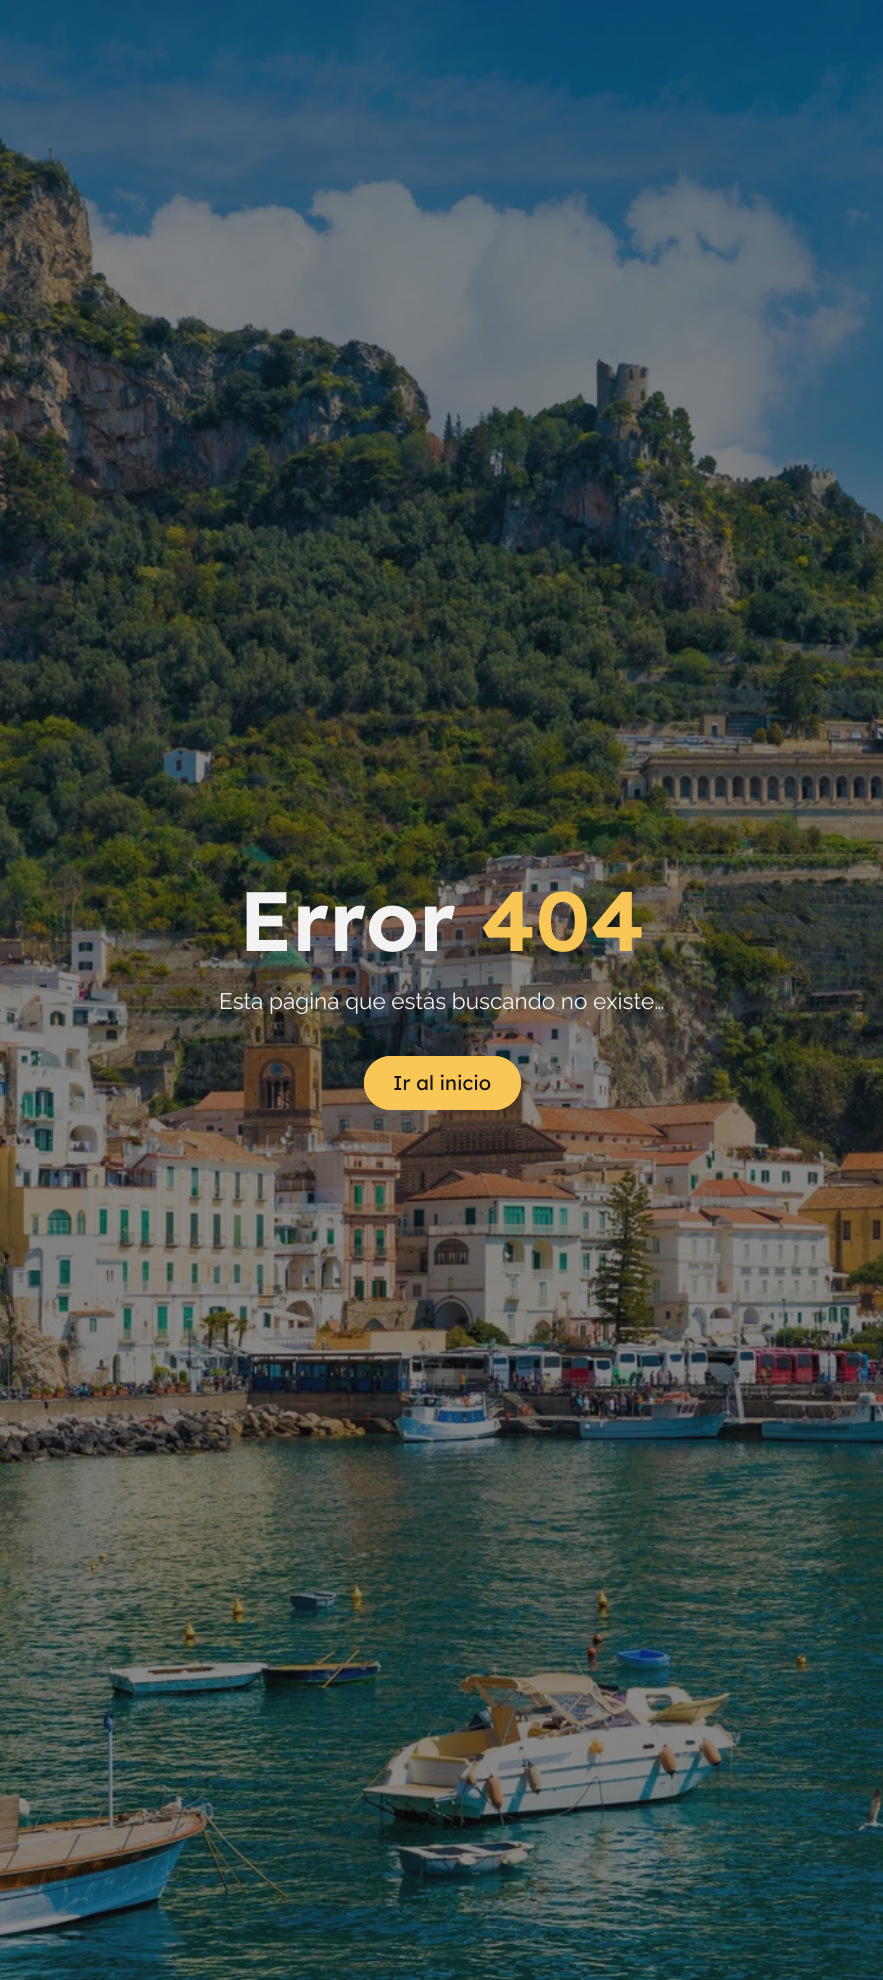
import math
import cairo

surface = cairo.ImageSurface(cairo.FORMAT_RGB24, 883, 1980)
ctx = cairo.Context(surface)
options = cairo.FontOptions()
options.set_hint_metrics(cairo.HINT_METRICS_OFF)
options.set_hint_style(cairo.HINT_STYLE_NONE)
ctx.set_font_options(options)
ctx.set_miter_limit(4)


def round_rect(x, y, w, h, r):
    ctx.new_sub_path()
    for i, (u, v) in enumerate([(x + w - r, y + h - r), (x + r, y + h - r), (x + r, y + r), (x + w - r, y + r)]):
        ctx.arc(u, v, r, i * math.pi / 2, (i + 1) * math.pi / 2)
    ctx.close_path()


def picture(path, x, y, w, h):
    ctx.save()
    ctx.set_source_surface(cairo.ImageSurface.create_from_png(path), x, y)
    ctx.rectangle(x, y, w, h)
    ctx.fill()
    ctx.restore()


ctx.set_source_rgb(0.078, 0.078, 0.078)
ctx.paint()
picture("img1.png", 0, 0, 883, 1980)
ctx.select_font_face("Lexend Deca SemiBold")
ctx.set_font_size(84)
ctx.set_source_rgb(0.953, 0.953, 0.953)
ctx.move_to(239, 951)
ctx.show_text("Error")
ctx.set_source_rgb(0.969, 0.78, 0.337)
ctx.move_to(481, 951)
ctx.show_text("404")
ctx.select_font_face("Raleway")
ctx.set_font_size(22.5)
ctx.set_source_rgb(0.953, 0.953, 0.953)
ctx.move_to(219, 1009)
ctx.show_text("Esta página que estás buscando no existe…")
ctx.set_source_rgb(0.973, 0.78, 0.337)
round_rect(364, 1056, 157, 54, 27)
ctx.fill()
round_rect(364.5, 1056.5, 156, 53, 26.5)
ctx.set_source_rgb(0.969, 0.78, 0.337)
ctx.set_line_width(1)
ctx.stroke()
ctx.select_font_face("Lexend Deca")
ctx.set_font_size(20)
ctx.set_source_rgb(0.078, 0.078, 0.078)
ctx.move_to(393, 1090)
ctx.show_text("Ir al inicio")
surface.write_to_png("page.png")
